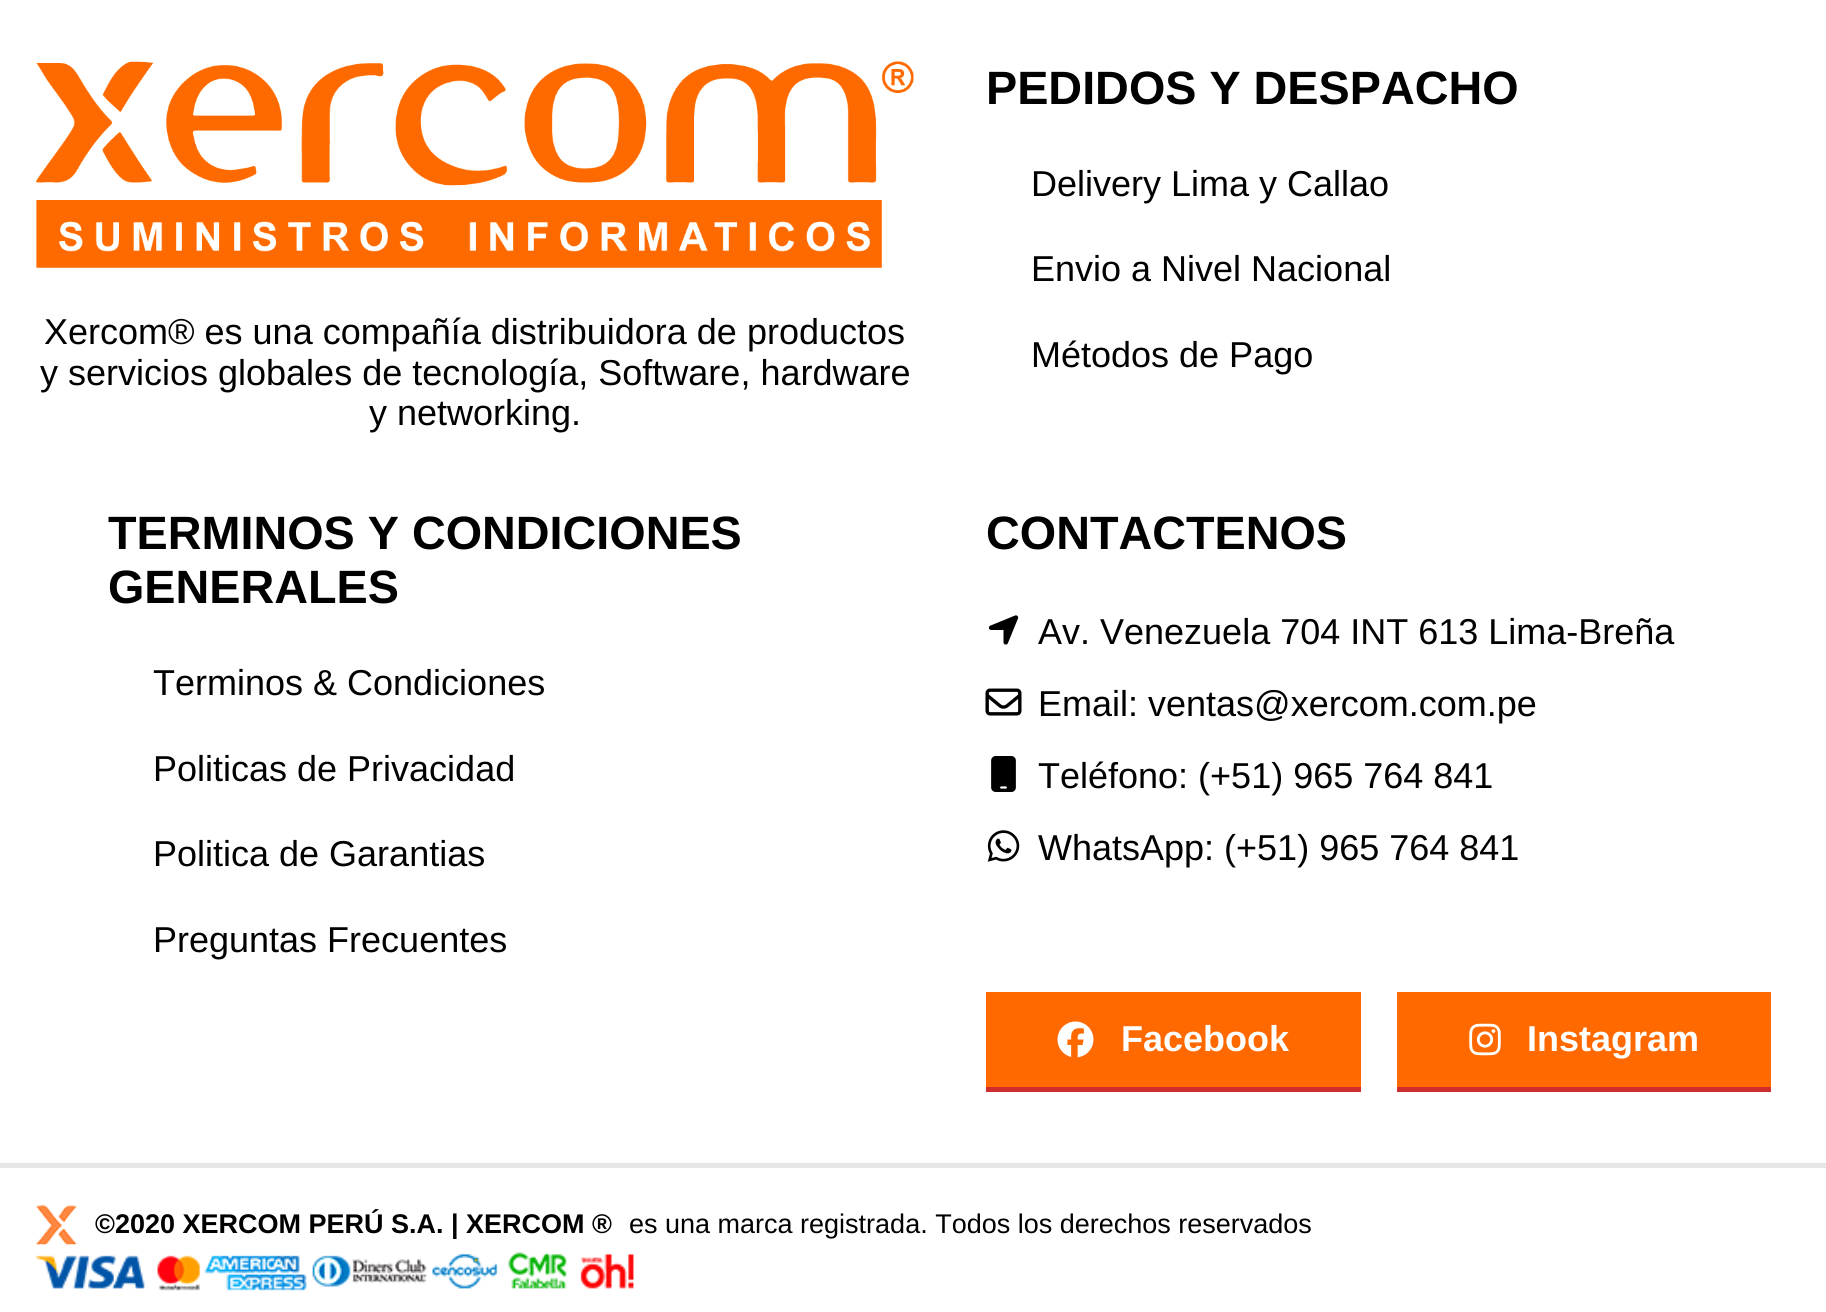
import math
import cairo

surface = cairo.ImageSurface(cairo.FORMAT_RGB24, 1826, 1312)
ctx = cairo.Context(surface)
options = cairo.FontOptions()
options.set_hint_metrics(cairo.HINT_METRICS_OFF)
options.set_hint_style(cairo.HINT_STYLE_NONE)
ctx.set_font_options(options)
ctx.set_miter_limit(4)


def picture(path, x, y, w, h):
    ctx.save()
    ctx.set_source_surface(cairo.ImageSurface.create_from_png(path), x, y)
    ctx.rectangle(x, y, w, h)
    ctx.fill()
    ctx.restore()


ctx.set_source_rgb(1, 1, 1)
ctx.paint()
picture("img1.png", 36, 61, 878, 207)
ctx.select_font_face("Liberation Sans")
ctx.set_font_size(36)
ctx.set_source_rgb(0, 0, 0)
ctx.move_to(44, 344)
ctx.show_text("Xercom® es una compañía distribuidora de productos")
ctx.move_to(40, 385)
ctx.show_text("y servicios globales de tecnología, Software, hardware")
ctx.move_to(369, 425)
ctx.show_text("y networking.")
ctx.select_font_face("Liberation Sans", cairo.FONT_SLANT_NORMAL, cairo.FONT_WEIGHT_BOLD)
ctx.set_font_size(46.75)
ctx.move_to(986, 104)
ctx.show_text("PEDIDOS Y DESPACHO")
ctx.select_font_face("Liberation Sans")
ctx.set_font_size(36)
ctx.move_to(1031, 196)
ctx.show_text("Delivery Lima y Callao")
ctx.move_to(1031, 281)
ctx.show_text("Envio a Nivel Nacional")
ctx.move_to(1031, 367)
ctx.show_text("Métodos de Pago")
ctx.select_font_face("Liberation Sans", cairo.FONT_SLANT_NORMAL, cairo.FONT_WEIGHT_BOLD)
ctx.set_font_size(46.75)
ctx.move_to(108, 549)
ctx.show_text("TERMINOS Y CONDICIONES")
ctx.move_to(108, 603)
ctx.show_text("GENERALES")
ctx.select_font_face("Liberation Sans")
ctx.set_font_size(36)
ctx.move_to(153, 695)
ctx.show_text("Terminos & Condiciones")
ctx.move_to(153, 781)
ctx.show_text("Politicas de Privacidad")
ctx.move_to(153, 866)
ctx.show_text("Politica de Garantias")
ctx.move_to(153, 952)
ctx.show_text("Preguntas Frecuentes")
ctx.select_font_face("Liberation Sans", cairo.FONT_SLANT_NORMAL, cairo.FONT_WEIGHT_BOLD)
ctx.set_font_size(46.75)
ctx.move_to(986, 549)
ctx.show_text("CONTACTENOS")
picture("img2.png", 988, 615, 31, 30)
ctx.select_font_face("Liberation Sans")
ctx.set_font_size(36)
ctx.move_to(1038, 644)
ctx.show_text("Av. Venezuela 704 INT 613 Lima-Breña")
picture("img3.png", 985, 688, 37, 28)
ctx.move_to(1038, 716)
ctx.show_text("Email: ventas@xercom.com.pe")
picture("img4.png", 991, 756, 25, 36)
ctx.move_to(1038, 788)
ctx.show_text("Teléfono: (+51) 965 764 841")
picture("img5.png", 987, 830, 33, 32)
ctx.move_to(1038, 860)
ctx.show_text("WhatsApp: (+51) 965 764 841")
ctx.set_source_rgb(1, 0.412, 0)
ctx.rectangle(986, 992, 375, 95)
ctx.fill()
ctx.set_source_rgb(0.812, 0.18, 0.18)
ctx.rectangle(986, 1087, 375, 5)
ctx.fill()
picture("img6.png", 1057, 1021, 37, 37)
ctx.select_font_face("Liberation Sans", cairo.FONT_SLANT_NORMAL, cairo.FONT_WEIGHT_BOLD)
ctx.set_source_rgb(1, 1, 1)
ctx.move_to(1121, 1051)
ctx.show_text("Facebook")
ctx.set_source_rgb(1, 0.412, 0)
ctx.rectangle(1397, 992, 374, 95)
ctx.fill()
ctx.set_source_rgb(0.812, 0.18, 0.18)
ctx.rectangle(1397, 1087, 374, 5)
ctx.fill()
picture("img7.png", 1469, 1023, 32, 33)
ctx.set_source_rgb(1, 1, 1)
ctx.move_to(1527, 1051)
ctx.show_text("Instagram")
ctx.set_source_rgb(0.902, 0.902, 0.902)
ctx.rectangle(0, 1163, 1826, 5)
ctx.fill()
picture("img8.png", 36, 1204, 41, 41)
ctx.set_font_size(27)
ctx.set_source_rgb(0, 0, 0)
ctx.move_to(95, 1233)
ctx.show_text("©2020 XERCOM PERÚ S.A. | XERCOM ®")
ctx.select_font_face("Liberation Sans")
ctx.move_to(629, 1233)
ctx.show_text("es una marca registrada. Todos los derechos reservados")
picture("img9.png", 36, 1252, 598, 39)
surface.write_to_png("page.png")
